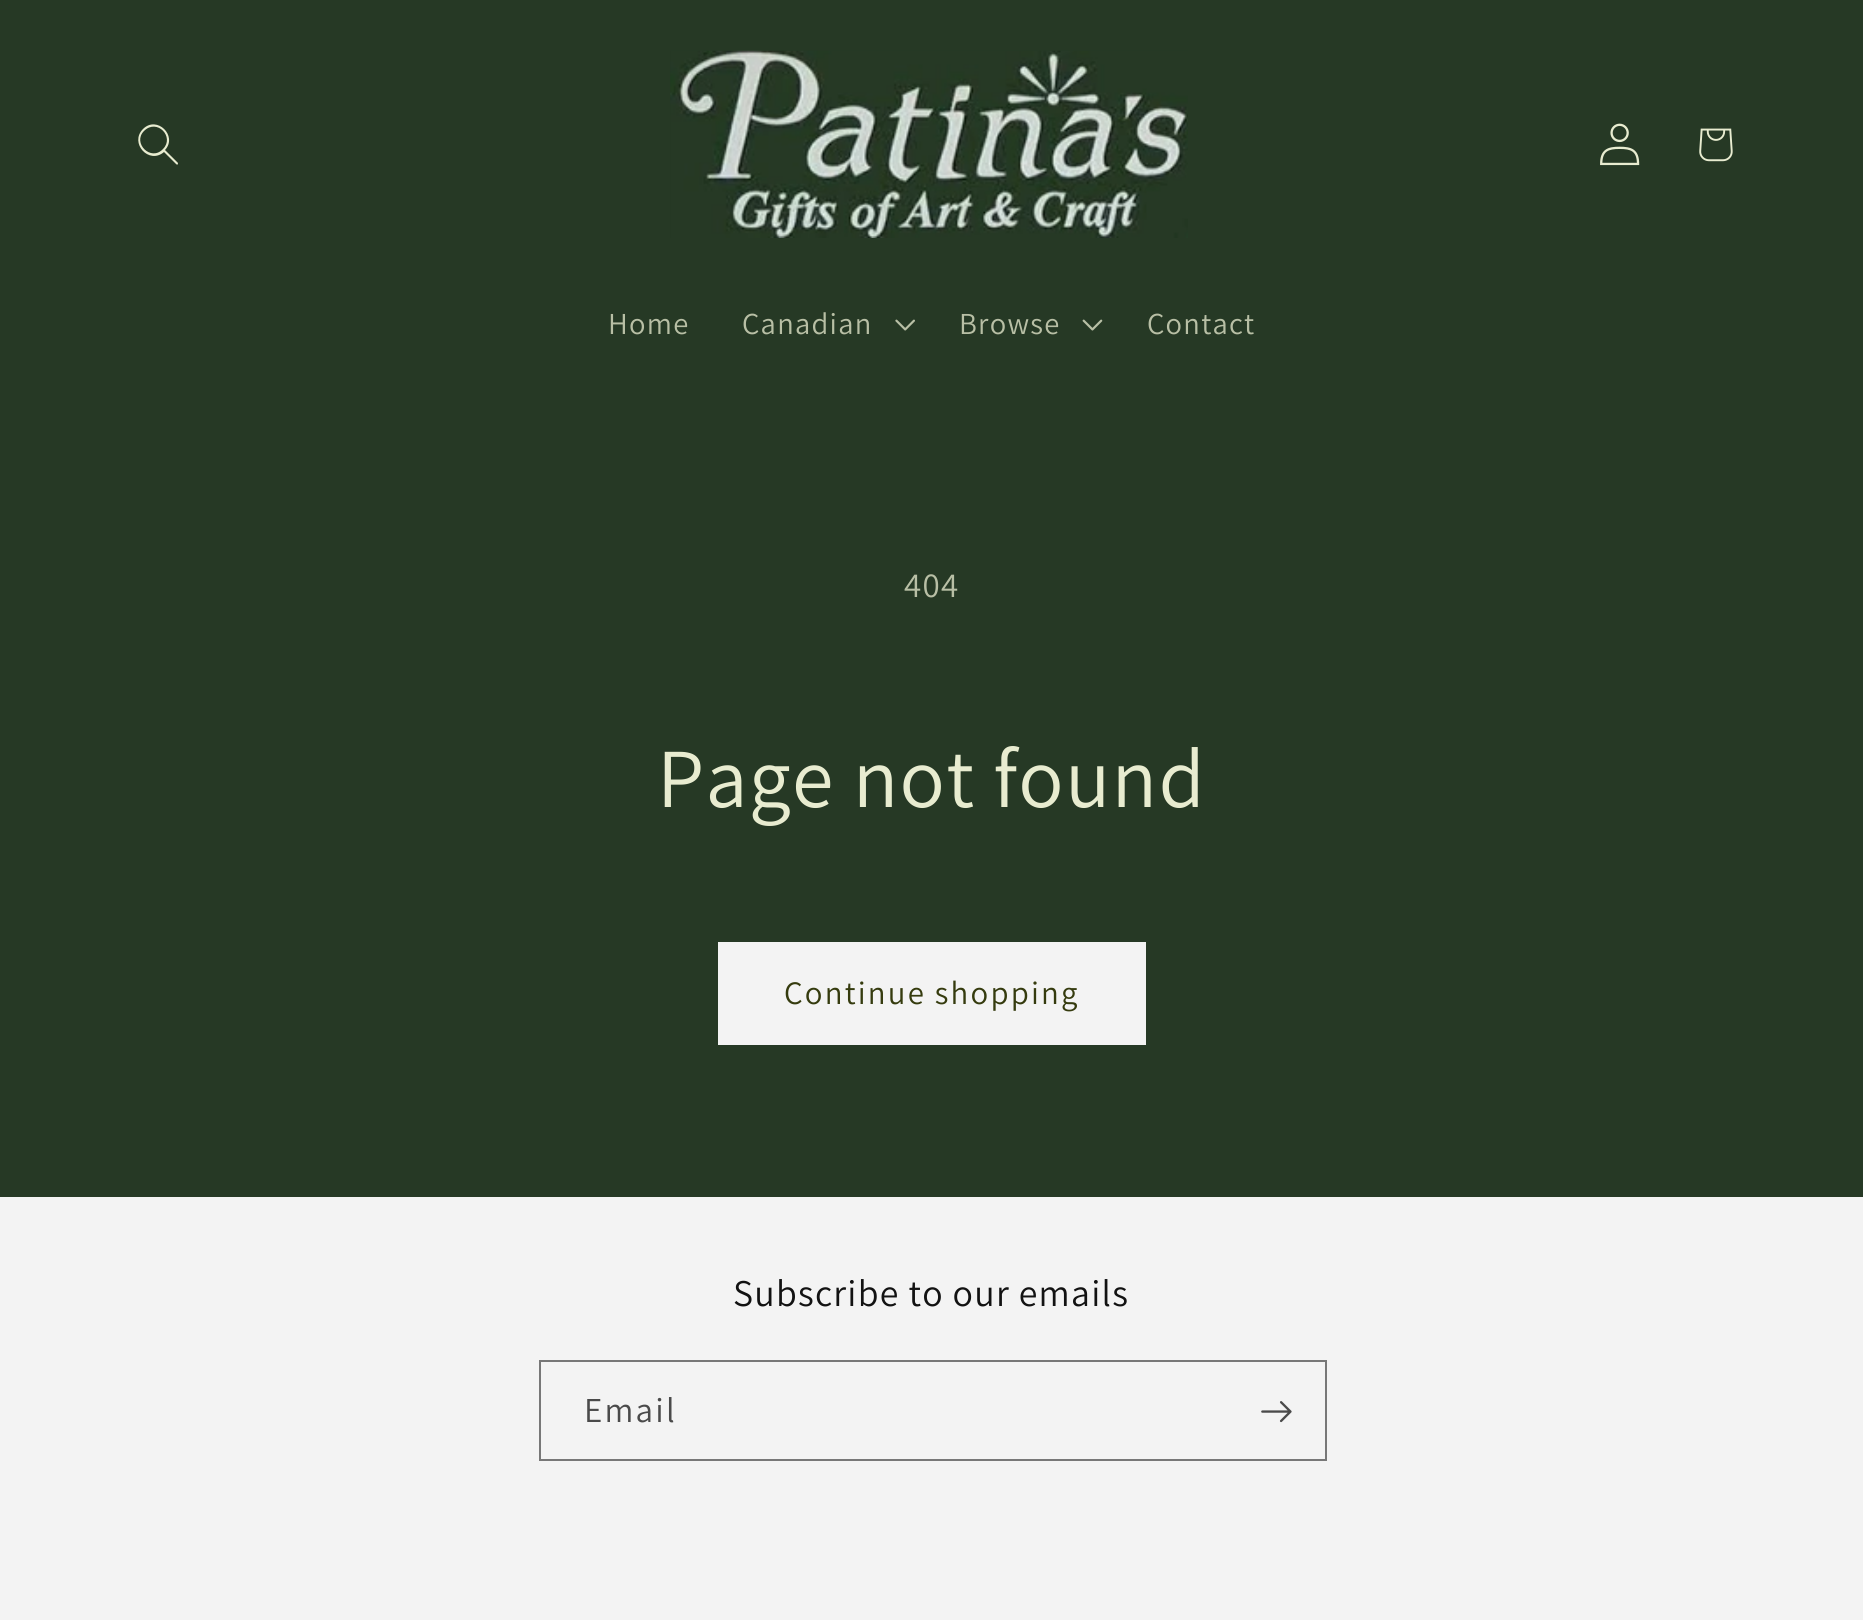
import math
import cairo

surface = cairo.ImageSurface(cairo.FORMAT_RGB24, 1863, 1620)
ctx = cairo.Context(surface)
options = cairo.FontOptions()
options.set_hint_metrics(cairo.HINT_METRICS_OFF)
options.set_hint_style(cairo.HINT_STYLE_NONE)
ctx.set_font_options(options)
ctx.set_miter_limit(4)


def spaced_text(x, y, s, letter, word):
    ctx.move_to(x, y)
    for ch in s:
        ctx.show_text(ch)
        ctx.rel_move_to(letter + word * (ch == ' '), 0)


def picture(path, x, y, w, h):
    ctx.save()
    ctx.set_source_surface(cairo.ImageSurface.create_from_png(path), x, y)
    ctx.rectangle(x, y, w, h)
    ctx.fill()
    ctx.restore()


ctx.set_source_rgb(0.149, 0.224, 0.145)
ctx.paint()
ctx.set_source_rgb(0.91, 0.925, 0.816)
ctx.set_fill_rule(cairo.FILL_RULE_EVEN_ODD)
ctx.new_path()
ctx.move_to(163, 149)
ctx.curve_to(151, 162, 132, 143, 144, 131)
ctx.curve_to(157, 118, 175, 137, 163, 149)
ctx.move_to(164, 152)
ctx.curve_to(149, 165, 129, 143, 143, 129)
ctx.curve_to(157, 115, 178, 136, 165, 150)
ctx.line_to(178, 163)
ctx.curve_to(178, 165, 177, 165, 176, 164)
ctx.close_path()
ctx.fill()
picture("img1.png", 670, 50, 518, 188)
picture("img2.png", 1600, 123, 40, 43)
picture("img3.png", 1699, 128, 34, 34)
ctx.select_font_face("Assistant")
ctx.set_font_size(30.5)
ctx.set_source_rgb(0.722, 0.749, 0.647)
spaced_text(608, 334, "Home", 1.25, 0)
spaced_text(742, 334, "Canadian", 1.25, 0)
picture("img4.png", 895, 319, 20, 12)
spaced_text(959, 334, "Browse", 1.25, 0)
picture("img5.png", 1082, 319, 21, 12)
spaced_text(1147, 334, "Contact", 1.25, 0)
ctx.set_font_size(35)
spaced_text(904, 597, "404", 1.25, 0)
ctx.set_font_size(84)
ctx.set_source_rgb(0.91, 0.925, 0.816)
spaced_text(657, 807, "Page not found", 1.25, 0)
ctx.set_source_rgb(0.953, 0.953, 0.953)
ctx.rectangle(718, 942, 428, 103)
ctx.fill()
ctx.set_font_size(32.75)
ctx.set_source_rgb(0.208, 0.231, 0.055)
spaced_text(784, 1004, "Continue shopping", 2.2, 0)
ctx.set_source_rgb(0.953, 0.953, 0.953)
ctx.rectangle(0, 1197, 1863, 423)
ctx.fill()
ctx.set_font_size(37.75)
ctx.set_source_rgb(0.071, 0.071, 0.071)
spaced_text(733, 1306, "Subscribe to our emails", 1.25, 0)
ctx.rectangle(540, 1361, 786, 99)
ctx.set_source_rgb(0.467, 0.467, 0.467)
ctx.stroke()
ctx.set_font_size(35)
ctx.set_source_rgb(0.29, 0.29, 0.29)
spaced_text(584, 1422, "Email", 2.2, 0)
picture("img6.png", 1261, 1401, 31, 22)
surface.write_to_png("page.png")
